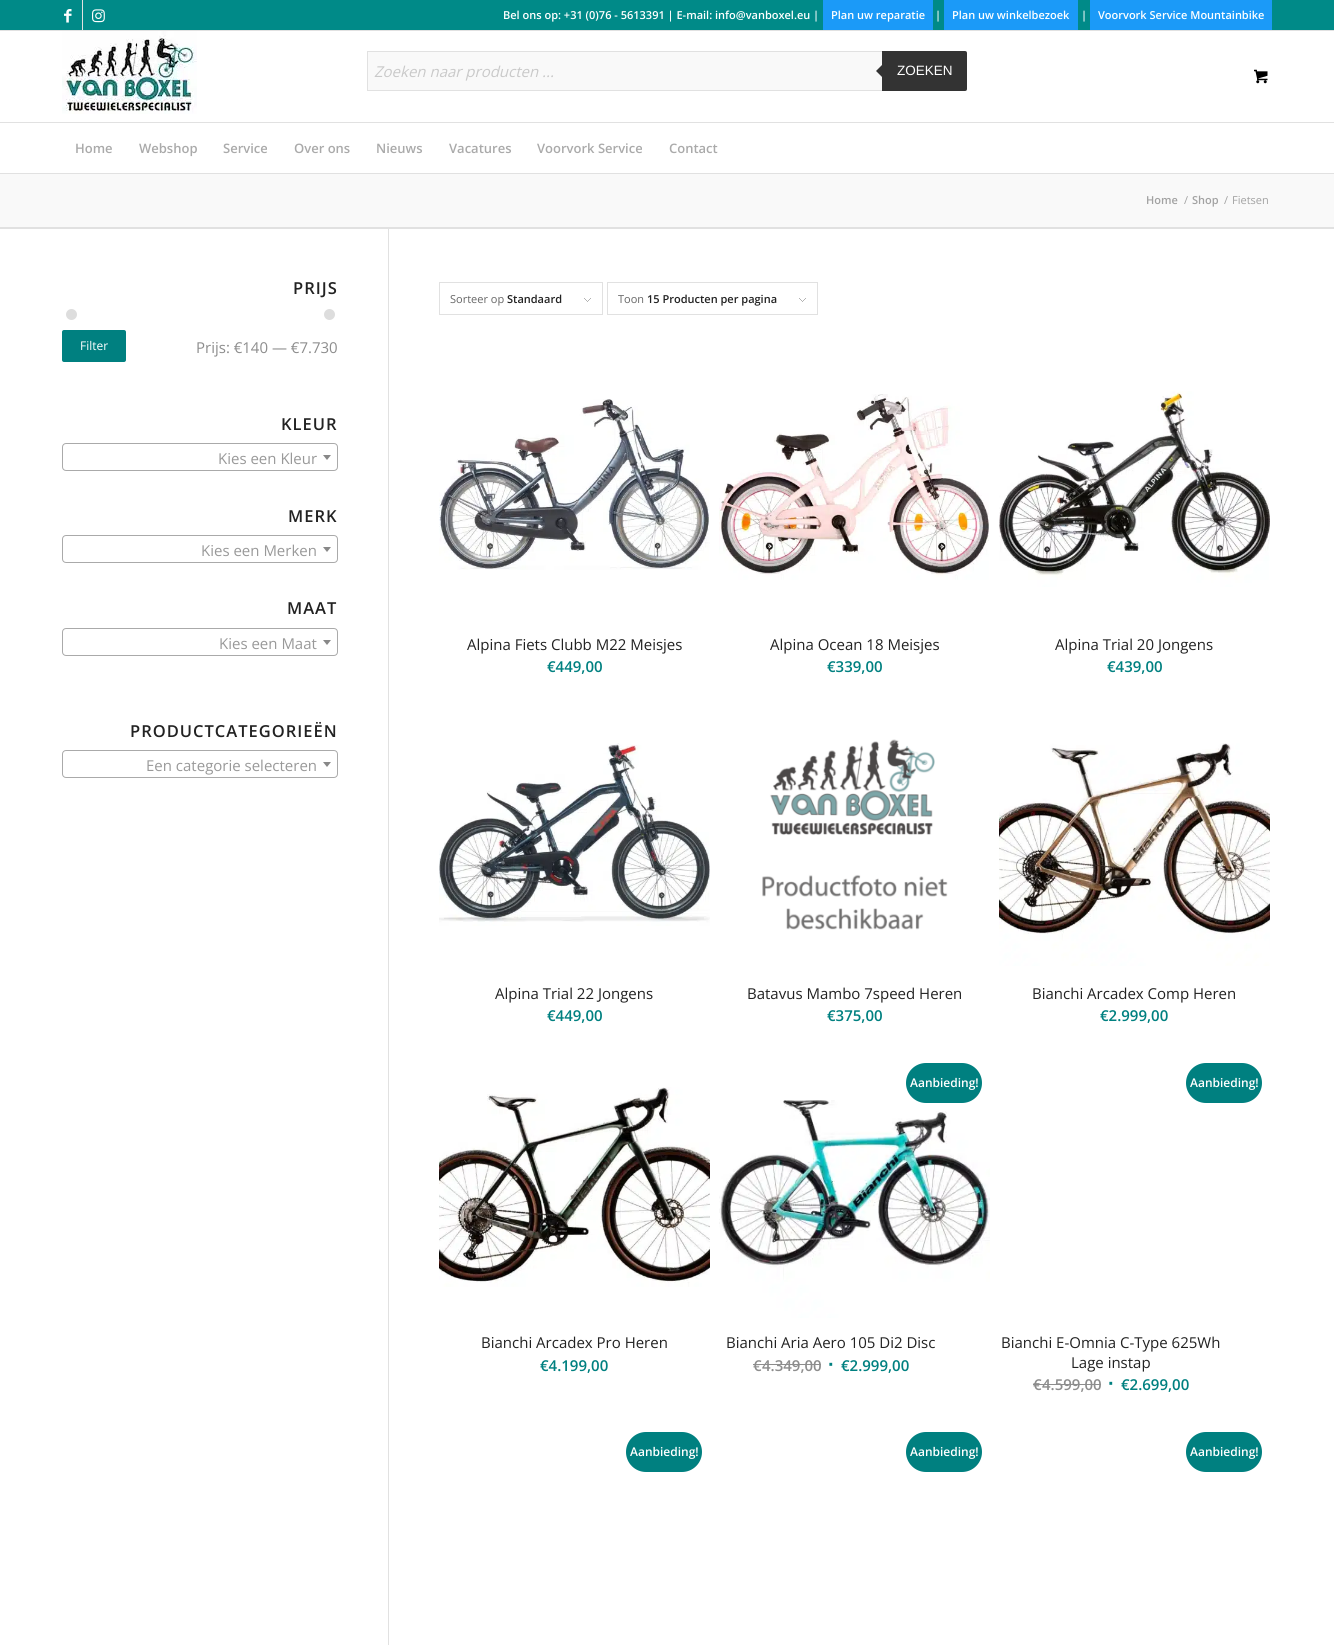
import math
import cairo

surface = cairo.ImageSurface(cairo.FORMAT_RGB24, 1334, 1645)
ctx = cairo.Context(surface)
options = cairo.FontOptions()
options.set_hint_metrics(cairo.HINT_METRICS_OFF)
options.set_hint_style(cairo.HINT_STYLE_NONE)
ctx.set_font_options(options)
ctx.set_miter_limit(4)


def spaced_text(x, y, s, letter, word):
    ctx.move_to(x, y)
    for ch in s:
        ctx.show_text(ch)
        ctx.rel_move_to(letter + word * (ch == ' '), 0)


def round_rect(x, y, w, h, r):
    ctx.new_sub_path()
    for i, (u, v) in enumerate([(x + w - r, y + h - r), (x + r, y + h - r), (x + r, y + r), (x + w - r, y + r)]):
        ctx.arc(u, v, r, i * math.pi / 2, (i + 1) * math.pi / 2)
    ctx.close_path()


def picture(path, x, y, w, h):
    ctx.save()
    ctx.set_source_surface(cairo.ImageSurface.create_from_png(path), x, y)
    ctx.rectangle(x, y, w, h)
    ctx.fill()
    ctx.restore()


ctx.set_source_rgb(1, 1, 1)
ctx.paint()
ctx.set_source_rgb(0, 0.541, 0.533)
ctx.rectangle(0, 0, 1334, 30)
ctx.fill()
ctx.set_source_rgb(0.882, 0.882, 0.882)
ctx.rectangle(0, 30, 1334, 1)
ctx.fill()
ctx.rectangle(82, 0, 1, 30)
ctx.fill()
picture("img1.png", 64, 9, 8, 14)
picture("img2.png", 92, 9, 13, 14)
ctx.select_font_face("Open Sans SemiBold")
ctx.set_font_size(11)
ctx.set_source_rgb(1, 1, 1)
ctx.move_to(503, 19)
ctx.show_text("Bel ons op: +31 (0)76 - 5613391 | E-mail: info@vanboxel.eu |")
ctx.set_source_rgb(0.106, 0.604, 0.969)
ctx.rectangle(823, 0, 110, 30)
ctx.fill()
ctx.set_source_rgb(1, 1, 1)
ctx.move_to(831, 19)
ctx.show_text("Plan uw reparatie")
ctx.move_to(935, 19)
ctx.show_text("|")
ctx.set_source_rgb(0.106, 0.604, 0.969)
ctx.rectangle(944, 0, 134, 30)
ctx.fill()
ctx.set_source_rgb(1, 1, 1)
ctx.move_to(952, 19)
ctx.show_text("Plan uw winkelbezoek")
ctx.move_to(1081, 19)
ctx.show_text("|")
ctx.set_source_rgb(0.106, 0.604, 0.969)
ctx.rectangle(1090, 0, 182, 30)
ctx.fill()
ctx.set_source_rgb(1, 1, 1)
ctx.move_to(1098, 19)
ctx.show_text("Voorvork Service Mountainbike")
ctx.set_source_rgb(0.882, 0.882, 0.882)
ctx.rectangle(0, 173, 1334, 1)
ctx.fill()
picture("img3.png", 62, 31, 135, 83)
picture("img4.png", 1254, 69, 14, 15)
ctx.set_source_rgb(0.973, 0.973, 0.973)
ctx.rectangle(368, 52, 514, 38)
ctx.fill()
ctx.rectangle(367.5, 51.5, 599, 39)
ctx.set_source_rgb(0.882, 0.882, 0.882)
ctx.set_line_width(1)
ctx.stroke()
ctx.select_font_face("Open Sans", cairo.FONT_SLANT_ITALIC)
ctx.set_font_size(15)
ctx.set_source_rgb(0.788, 0.788, 0.788)
ctx.move_to(374, 77)
ctx.show_text("Zoeken naar producten ...")
ctx.set_source_rgb(0.2, 0.2, 0.2)
ctx.new_path()
ctx.move_to(882, 51)
ctx.line_to(965, 51)
ctx.curve_to(966, 51, 967, 52, 967, 53)
ctx.line_to(967, 89)
ctx.curve_to(967, 90, 966, 91, 965, 91)
ctx.line_to(882, 91)
ctx.close_path()
ctx.fill()
ctx.new_path()
ctx.move_to(884, 63)
ctx.line_to(884, 79)
ctx.line_to(876, 71)
ctx.close_path()
ctx.fill()
ctx.select_font_face("Liberation Sans")
ctx.set_font_size(13.5)
ctx.set_source_rgb(1, 1, 1)
ctx.move_to(897, 75)
ctx.show_text("ZOEKEN")
ctx.set_source_rgb(0.882, 0.882, 0.882)
ctx.rectangle(0, 122, 1334, 1)
ctx.fill()
ctx.select_font_face("Open Sans SemiBold")
ctx.set_font_size(13)
ctx.set_source_rgb(0.667, 0.667, 0.667)
ctx.move_to(75, 153)
ctx.show_text("Home")
ctx.move_to(139, 153)
ctx.show_text("Webshop")
ctx.move_to(223, 153)
ctx.show_text("Service")
ctx.move_to(294, 153)
ctx.show_text("Over ons")
ctx.move_to(376, 153)
ctx.show_text("Nieuws")
ctx.move_to(449, 153)
ctx.show_text("Vacatures")
ctx.move_to(537, 153)
ctx.show_text("Voorvork Service")
ctx.move_to(669, 153)
ctx.show_text("Contact")
ctx.set_source_rgb(0.973, 0.973, 0.973)
ctx.rectangle(0, 174, 1334, 53)
ctx.fill()
ctx.set_source_rgb(0.882, 0.882, 0.882)
ctx.rectangle(0, 227, 1334, 2)
ctx.fill()
ctx.set_font_size(11)
ctx.set_source_rgb(0.635, 0.635, 0.635)
ctx.move_to(1146, 204)
ctx.show_text("Home")
ctx.select_font_face("Open Sans")
ctx.move_to(1184, 204)
ctx.show_text("/")
ctx.select_font_face("Open Sans SemiBold")
ctx.move_to(1192, 204)
ctx.show_text("Shop")
ctx.select_font_face("Open Sans")
ctx.move_to(1224, 204)
ctx.show_text("/")
ctx.move_to(1232, 204)
ctx.show_text("Fietsen")
ctx.select_font_face("Open Sans SemiBold")
ctx.set_font_size(16.5)
ctx.set_source_rgb(0.133, 0.133, 0.133)
spaced_text(293, 294, "PRIJS", 1, 0)
ctx.set_source_rgb(0.867, 0.867, 0.867)
ctx.new_path()
ctx.arc(71.5, 314.5, 5.5, 0, 2 * math.pi)
ctx.fill()
ctx.arc(329.5, 314.5, 5.5, 0, 2 * math.pi)
ctx.fill()
ctx.set_source_rgb(0, 0.502, 0.502)
round_rect(62, 330, 64, 32, 2)
ctx.fill()
ctx.select_font_face("Open Sans")
ctx.set_font_size(12)
ctx.set_source_rgb(1, 1, 1)
ctx.move_to(80, 350)
ctx.show_text("Filter")
ctx.set_font_size(15)
ctx.set_source_rgb(0.553, 0.553, 0.553)
ctx.move_to(196, 353)
ctx.show_text("Prijs: €140 — €7.730")
ctx.select_font_face("Open Sans SemiBold")
ctx.set_font_size(16.5)
ctx.set_source_rgb(0.133, 0.133, 0.133)
spaced_text(281, 430, "KLEUR", 1, 0)
round_rect(62.5, 443.5, 275, 27, 3.5)
ctx.set_source_rgb(0.667, 0.667, 0.667)
ctx.stroke()
ctx.select_font_face("Open Sans")
ctx.set_font_size(15)
ctx.set_source_rgb(0.6, 0.6, 0.6)
ctx.move_to(218, 464)
ctx.show_text("Kies een Kleur")
ctx.set_source_rgb(0.533, 0.533, 0.533)
ctx.new_path()
ctx.move_to(323, 455)
ctx.line_to(331, 455)
ctx.line_to(327, 460)
ctx.close_path()
ctx.fill()
ctx.select_font_face("Open Sans SemiBold")
ctx.set_font_size(16.5)
ctx.set_source_rgb(0.133, 0.133, 0.133)
spaced_text(288, 522, "MERK", 1, 0)
round_rect(62.5, 535.5, 275, 27, 3.5)
ctx.set_source_rgb(0.667, 0.667, 0.667)
ctx.stroke()
ctx.select_font_face("Open Sans")
ctx.set_font_size(15)
ctx.set_source_rgb(0.6, 0.6, 0.6)
ctx.move_to(201, 556)
ctx.show_text("Kies een Merken")
ctx.set_source_rgb(0.533, 0.533, 0.533)
ctx.new_path()
ctx.move_to(323, 547)
ctx.line_to(331, 547)
ctx.line_to(327, 552)
ctx.close_path()
ctx.fill()
ctx.select_font_face("Open Sans SemiBold")
ctx.set_font_size(16.5)
ctx.set_source_rgb(0.133, 0.133, 0.133)
spaced_text(287, 614, "MAAT", 1, 0)
round_rect(62.5, 628.5, 275, 27, 3.5)
ctx.set_source_rgb(0.667, 0.667, 0.667)
ctx.stroke()
ctx.select_font_face("Open Sans")
ctx.set_font_size(15)
ctx.set_source_rgb(0.6, 0.6, 0.6)
ctx.move_to(219, 649)
ctx.show_text("Kies een Maat")
ctx.set_source_rgb(0.533, 0.533, 0.533)
ctx.new_path()
ctx.move_to(323, 640)
ctx.line_to(331, 640)
ctx.line_to(327, 645)
ctx.close_path()
ctx.fill()
ctx.select_font_face("Open Sans SemiBold")
ctx.set_font_size(16.5)
ctx.set_source_rgb(0.133, 0.133, 0.133)
spaced_text(130, 737, "PRODUCTCATEGORIEËN", 1, 0)
round_rect(62.5, 750.5, 275, 27, 3.5)
ctx.set_source_rgb(0.667, 0.667, 0.667)
ctx.stroke()
ctx.select_font_face("Open Sans")
ctx.set_font_size(15)
ctx.set_source_rgb(0.6, 0.6, 0.6)
ctx.move_to(146, 771)
ctx.show_text("Een categorie selecteren")
ctx.set_source_rgb(0.533, 0.533, 0.533)
ctx.new_path()
ctx.move_to(323, 762)
ctx.line_to(331, 762)
ctx.line_to(327, 767)
ctx.close_path()
ctx.fill()
ctx.set_source_rgb(0.882, 0.882, 0.882)
ctx.rectangle(388, 229, 1, 1416)
ctx.fill()
picture("img5.png", 584, 298, 7, 4)
ctx.rectangle(439.5, 282.5, 163, 32)
ctx.stroke()
ctx.set_font_size(11)
ctx.set_source_rgb(0.4, 0.4, 0.4)
ctx.move_to(450, 303)
ctx.show_text("Sorteer op")
ctx.select_font_face("Open Sans SemiBold")
ctx.set_source_rgb(0.133, 0.133, 0.133)
ctx.move_to(507, 303)
ctx.show_text("Standaard")
picture("img5.png", 799, 298, 7, 4)
ctx.rectangle(607.5, 282.5, 210, 32)
ctx.set_source_rgb(0.882, 0.882, 0.882)
ctx.stroke()
ctx.select_font_face("Open Sans")
ctx.set_source_rgb(0.4, 0.4, 0.4)
ctx.move_to(618, 303)
ctx.show_text("Toon")
ctx.select_font_face("Open Sans SemiBold")
ctx.set_source_rgb(0.133, 0.133, 0.133)
ctx.move_to(647, 303)
ctx.show_text("15 Producten per pagina")
picture("img6.png", 439, 399, 271, 171)
ctx.select_font_face("Open Sans")
ctx.set_font_size(15)
ctx.move_to(467, 650)
ctx.show_text("Alpina Fiets Clubb M22 Meisjes")
ctx.select_font_face("Open Sans SemiBold")
ctx.set_source_rgb(0, 0.502, 0.502)
ctx.move_to(547, 672)
ctx.show_text("€449,00")
picture("img7.png", 719, 394, 270, 186)
ctx.select_font_face("Open Sans")
ctx.set_source_rgb(0.133, 0.133, 0.133)
ctx.move_to(770, 650)
ctx.show_text("Alpina Ocean 18 Meisjes")
ctx.select_font_face("Open Sans SemiBold")
ctx.set_source_rgb(0, 0.502, 0.502)
ctx.move_to(827, 672)
ctx.show_text("€339,00")
picture("img8.png", 999, 391, 271, 196)
ctx.select_font_face("Open Sans")
ctx.set_source_rgb(0.133, 0.133, 0.133)
ctx.move_to(1055, 650)
ctx.show_text("Alpina Trial 20 Jongens")
ctx.select_font_face("Open Sans SemiBold")
ctx.set_source_rgb(0, 0.502, 0.502)
ctx.move_to(1107, 672)
ctx.show_text("€439,00")
picture("img9.png", 439, 743, 271, 183)
ctx.select_font_face("Open Sans")
ctx.set_source_rgb(0.133, 0.133, 0.133)
ctx.move_to(495, 999)
ctx.show_text("Alpina Trial 22 Jongens")
ctx.select_font_face("Open Sans SemiBold")
ctx.set_source_rgb(0, 0.502, 0.502)
ctx.move_to(547, 1021)
ctx.show_text("€449,00")
picture("img10.png", 762, 739, 186, 191)
ctx.select_font_face("Open Sans")
ctx.set_source_rgb(0.133, 0.133, 0.133)
ctx.move_to(747, 999)
ctx.show_text("Batavus Mambo 7speed Heren")
ctx.select_font_face("Open Sans SemiBold")
ctx.set_source_rgb(0, 0.502, 0.502)
ctx.move_to(827, 1021)
ctx.show_text("€375,00")
picture("img11.png", 999, 743, 271, 223)
ctx.select_font_face("Open Sans")
ctx.set_source_rgb(0.133, 0.133, 0.133)
ctx.move_to(1032, 999)
ctx.show_text("Bianchi Arcadex Comp Heren")
ctx.select_font_face("Open Sans SemiBold")
ctx.set_source_rgb(0, 0.502, 0.502)
ctx.move_to(1100, 1021)
ctx.show_text("€2.999,00")
picture("img12.png", 439, 1087, 271, 200)
ctx.select_font_face("Open Sans")
ctx.set_source_rgb(0.133, 0.133, 0.133)
ctx.move_to(481, 1348)
ctx.show_text("Bianchi Arcadex Pro Heren")
ctx.select_font_face("Open Sans SemiBold")
ctx.set_source_rgb(0, 0.502, 0.502)
ctx.move_to(540, 1371)
ctx.show_text("€4.199,00")
picture("img13.png", 719, 1100, 271, 218)
round_rect(906, 1063, 76, 40, 20)
ctx.fill()
ctx.set_font_size(12)
ctx.set_source_rgb(1, 1, 1)
ctx.move_to(910, 1087)
ctx.show_text("Aanbieding!")
ctx.select_font_face("Open Sans")
ctx.set_font_size(15)
ctx.set_source_rgb(0.133, 0.133, 0.133)
ctx.move_to(726, 1348)
ctx.show_text("Bianchi Aria Aero 105 Di2 Disc")
ctx.select_font_face("Open Sans SemiBold")
ctx.set_source_rgb(0.553, 0.553, 0.553)
ctx.move_to(753, 1371)
ctx.show_text("€")
ctx.rectangle(753, 1364, 9, 1)
ctx.fill()
ctx.rectangle(762, 1364, 59, 1)
ctx.fill()
ctx.move_to(762, 1371)
ctx.show_text("4.349,00")
ctx.select_font_face("Liberation Sans", cairo.FONT_SLANT_NORMAL, cairo.FONT_WEIGHT_BOLD)
ctx.set_font_size(20)
ctx.set_source_rgb(0, 0.502, 0.502)
ctx.move_to(828, 1371)
ctx.show_text("∙")
ctx.select_font_face("Open Sans SemiBold")
ctx.set_font_size(15)
ctx.move_to(841, 1371)
ctx.show_text("€2.999,00")
round_rect(1186, 1063, 76, 40, 20)
ctx.fill()
ctx.set_font_size(12)
ctx.set_source_rgb(1, 1, 1)
ctx.move_to(1190, 1087)
ctx.show_text("Aanbieding!")
ctx.select_font_face("Open Sans")
ctx.set_font_size(15)
ctx.set_source_rgb(0.133, 0.133, 0.133)
ctx.move_to(1001, 1348)
ctx.show_text("Bianchi E-Omnia C-Type 625Wh")
ctx.move_to(1071, 1368)
ctx.show_text("Lage instap")
ctx.select_font_face("Open Sans SemiBold")
ctx.set_source_rgb(0.553, 0.553, 0.553)
ctx.move_to(1033, 1390)
ctx.show_text("€")
ctx.rectangle(1033, 1384, 9, 1)
ctx.fill()
ctx.rectangle(1042, 1384, 59, 1)
ctx.fill()
ctx.move_to(1042, 1390)
ctx.show_text("4.599,00")
ctx.select_font_face("Liberation Sans", cairo.FONT_SLANT_NORMAL, cairo.FONT_WEIGHT_BOLD)
ctx.set_font_size(20)
ctx.set_source_rgb(0, 0.502, 0.502)
ctx.move_to(1108, 1390)
ctx.show_text("∙")
ctx.select_font_face("Open Sans SemiBold")
ctx.set_font_size(15)
ctx.move_to(1121, 1390)
ctx.show_text("€2.699,00")
round_rect(626, 1432, 76, 40, 20)
ctx.fill()
ctx.set_font_size(12)
ctx.set_source_rgb(1, 1, 1)
ctx.move_to(630, 1456)
ctx.show_text("Aanbieding!")
ctx.set_source_rgb(0, 0.502, 0.502)
round_rect(906, 1432, 76, 40, 20)
ctx.fill()
ctx.set_source_rgb(1, 1, 1)
ctx.move_to(910, 1456)
ctx.show_text("Aanbieding!")
ctx.set_source_rgb(0, 0.502, 0.502)
round_rect(1186, 1432, 76, 40, 20)
ctx.fill()
ctx.set_source_rgb(1, 1, 1)
ctx.move_to(1190, 1456)
ctx.show_text("Aanbieding!")
surface.write_to_png("page.png")
